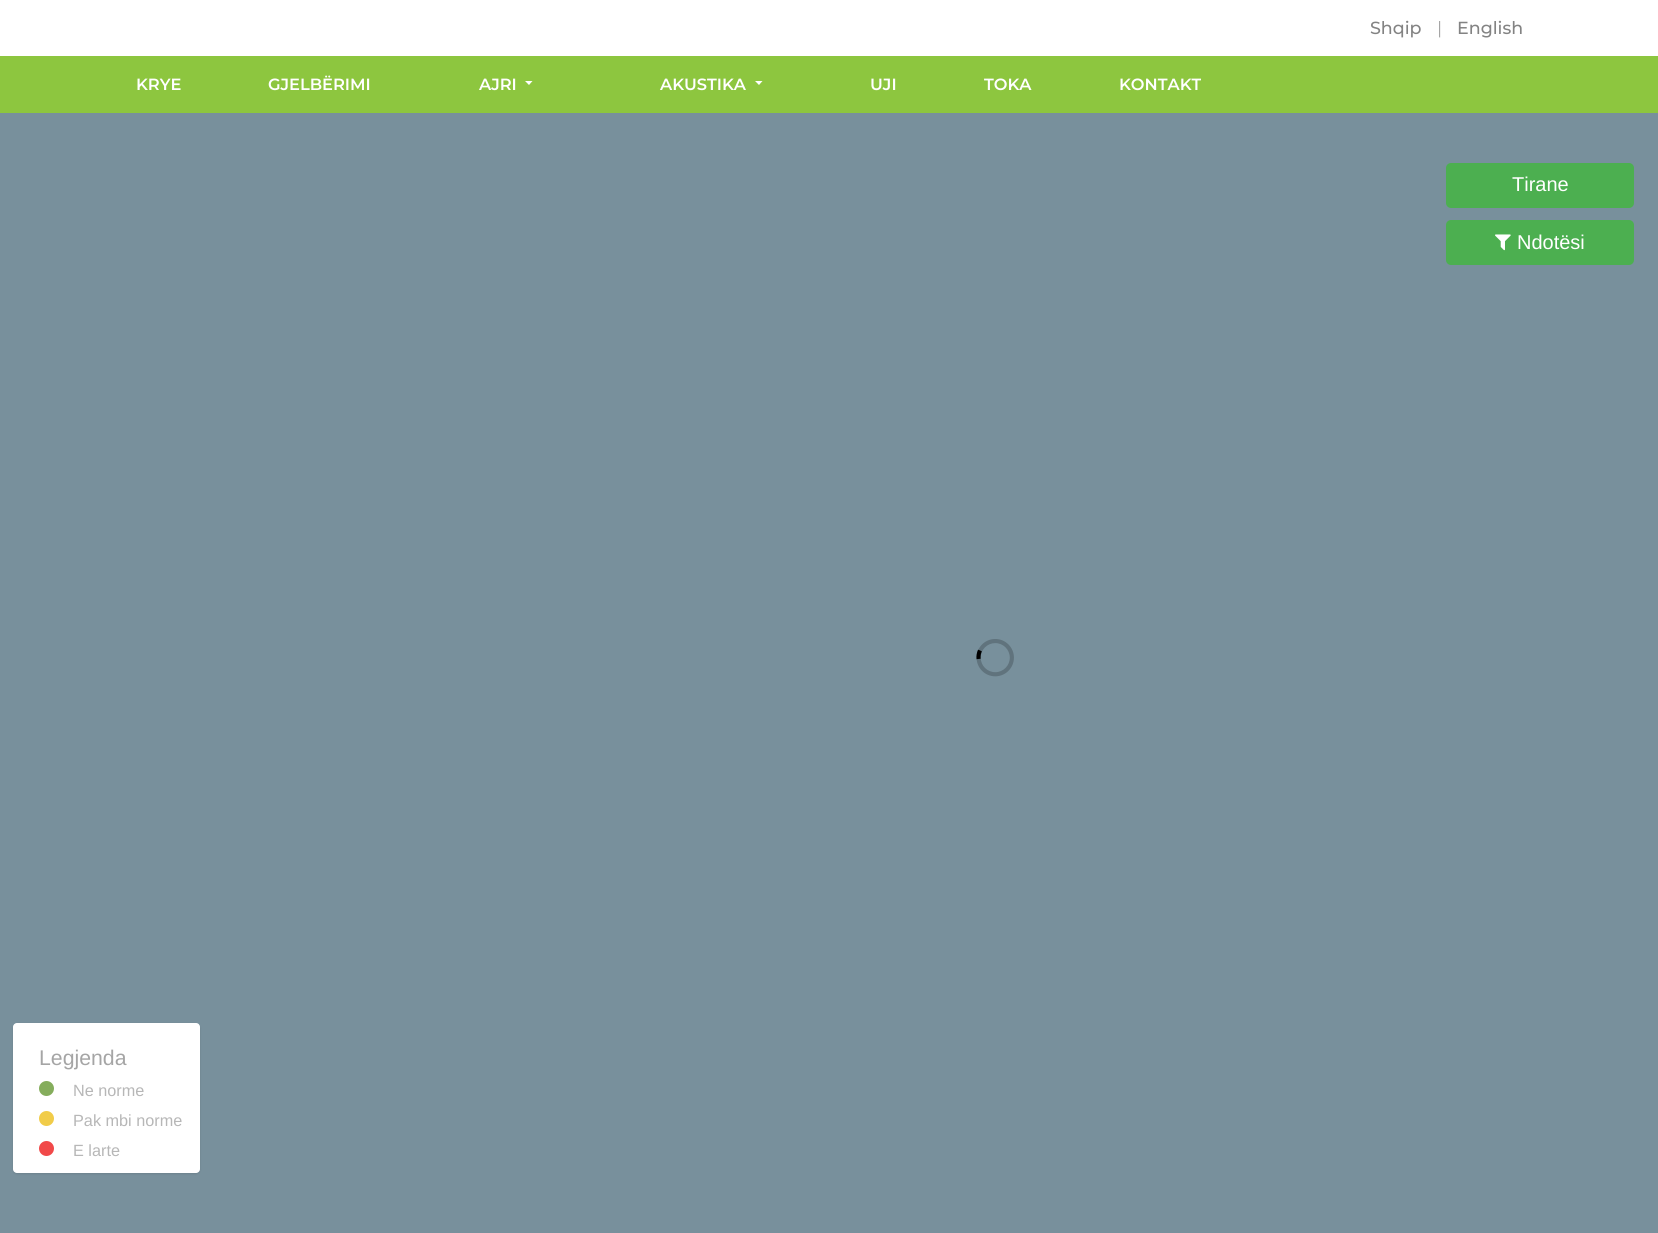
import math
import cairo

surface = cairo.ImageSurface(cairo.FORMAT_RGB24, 1658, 1233)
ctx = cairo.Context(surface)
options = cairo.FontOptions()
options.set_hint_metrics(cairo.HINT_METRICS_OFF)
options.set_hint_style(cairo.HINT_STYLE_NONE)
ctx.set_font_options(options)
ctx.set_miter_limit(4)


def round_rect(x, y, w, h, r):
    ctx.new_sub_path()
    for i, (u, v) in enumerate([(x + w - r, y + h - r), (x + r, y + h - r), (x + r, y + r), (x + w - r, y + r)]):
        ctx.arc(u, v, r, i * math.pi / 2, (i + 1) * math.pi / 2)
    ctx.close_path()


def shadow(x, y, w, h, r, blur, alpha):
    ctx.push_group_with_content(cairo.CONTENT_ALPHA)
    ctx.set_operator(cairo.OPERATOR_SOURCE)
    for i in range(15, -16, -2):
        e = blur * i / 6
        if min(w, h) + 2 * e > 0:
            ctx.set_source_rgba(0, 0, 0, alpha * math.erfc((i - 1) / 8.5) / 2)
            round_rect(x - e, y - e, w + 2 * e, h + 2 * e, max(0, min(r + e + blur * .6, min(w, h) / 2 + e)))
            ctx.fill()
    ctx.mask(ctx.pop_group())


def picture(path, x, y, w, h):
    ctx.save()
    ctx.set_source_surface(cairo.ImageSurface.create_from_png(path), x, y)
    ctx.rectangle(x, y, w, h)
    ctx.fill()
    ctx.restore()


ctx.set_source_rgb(0.471, 0.565, 0.612)
ctx.paint()
ctx.set_source_rgb(1, 1, 1)
ctx.rectangle(0, 0, 1658, 56)
ctx.fill()
ctx.select_font_face("Montserrat Medium")
ctx.set_font_size(17.5)
ctx.set_source_rgb(0.514, 0.514, 0.514)
ctx.move_to(1370, 34)
ctx.show_text("Shqip")
ctx.select_font_face("Montserrat")
ctx.set_source_rgb(0.647, 0.647, 0.647)
ctx.move_to(1437, 34)
ctx.show_text("|")
ctx.select_font_face("Montserrat Medium")
ctx.set_source_rgb(0.514, 0.514, 0.514)
ctx.move_to(1457, 34)
ctx.show_text("English")
ctx.set_source_rgb(0.553, 0.776, 0.247)
ctx.rectangle(0, 56, 1658, 57)
ctx.fill()
ctx.select_font_face("Montserrat SemiBold")
ctx.set_font_size(16.25)
ctx.set_source_rgb(1, 1, 1)
ctx.move_to(136, 90)
ctx.show_text("KRYE")
ctx.move_to(268, 90)
ctx.show_text("GJELBËRIMI")
ctx.move_to(479, 90)
ctx.show_text("AJRI")
ctx.new_path()
ctx.move_to(525, 81)
ctx.line_to(532.5, 81)
ctx.line_to(529, 85)
ctx.close_path()
ctx.fill()
ctx.move_to(660, 90)
ctx.show_text("AKUSTIKA")
ctx.new_path()
ctx.move_to(755, 81)
ctx.line_to(762.5, 81)
ctx.line_to(759, 85)
ctx.close_path()
ctx.fill()
ctx.move_to(870, 90)
ctx.show_text("UJI")
ctx.move_to(984, 90)
ctx.show_text("TOKA")
ctx.move_to(1119, 90)
ctx.show_text("KONTAKT")
ctx.set_source_rgb(0.298, 0.686, 0.314)
round_rect(1446, 163, 188, 45, 5)
ctx.fill()
ctx.select_font_face("Liberation Sans")
ctx.set_font_size(20)
ctx.set_source_rgb(1, 1, 1)
ctx.move_to(1512, 191)
ctx.show_text("Tirane")
ctx.set_source_rgb(0.298, 0.686, 0.314)
round_rect(1446, 220, 188, 45, 5)
ctx.fill()
picture("img1.png", 1495, 234, 16, 17)
ctx.set_source_rgb(1, 1, 1)
ctx.move_to(1517, 249)
ctx.show_text("Ndotësi")
picture("img2.png", 976, 639, 38, 38)
ctx.set_source_rgb(0, 0, 0)
shadow(13, 1024, 187, 150, 4, 1, 0.1)
ctx.set_source_rgb(1, 1, 1)
round_rect(13, 1023, 187, 150, 4)
ctx.fill()
ctx.set_font_size(21.25)
ctx.set_source_rgb(0.647, 0.647, 0.647)
ctx.move_to(39, 1065)
ctx.show_text("Legjenda")
ctx.set_source_rgb(0.522, 0.678, 0.361)
ctx.new_path()
ctx.arc(46.5, 1088.5, 7.5, 0, 2 * math.pi)
ctx.fill()
ctx.set_font_size(16.25)
ctx.set_source_rgb(0.718, 0.718, 0.718)
ctx.move_to(73, 1096)
ctx.show_text("Ne norme")
ctx.set_source_rgb(0.945, 0.8, 0.286)
ctx.new_path()
ctx.arc(46.5, 1118.5, 7.5, 0, 2 * math.pi)
ctx.fill()
ctx.set_source_rgb(0.718, 0.718, 0.718)
ctx.move_to(73, 1126)
ctx.show_text("Pak mbi norme")
ctx.set_source_rgb(0.945, 0.286, 0.286)
ctx.new_path()
ctx.arc(46.5, 1148.5, 7.5, 0, 2 * math.pi)
ctx.fill()
ctx.set_source_rgb(0.718, 0.718, 0.718)
ctx.move_to(73, 1156)
ctx.show_text("E larte")
surface.write_to_png("page.png")
